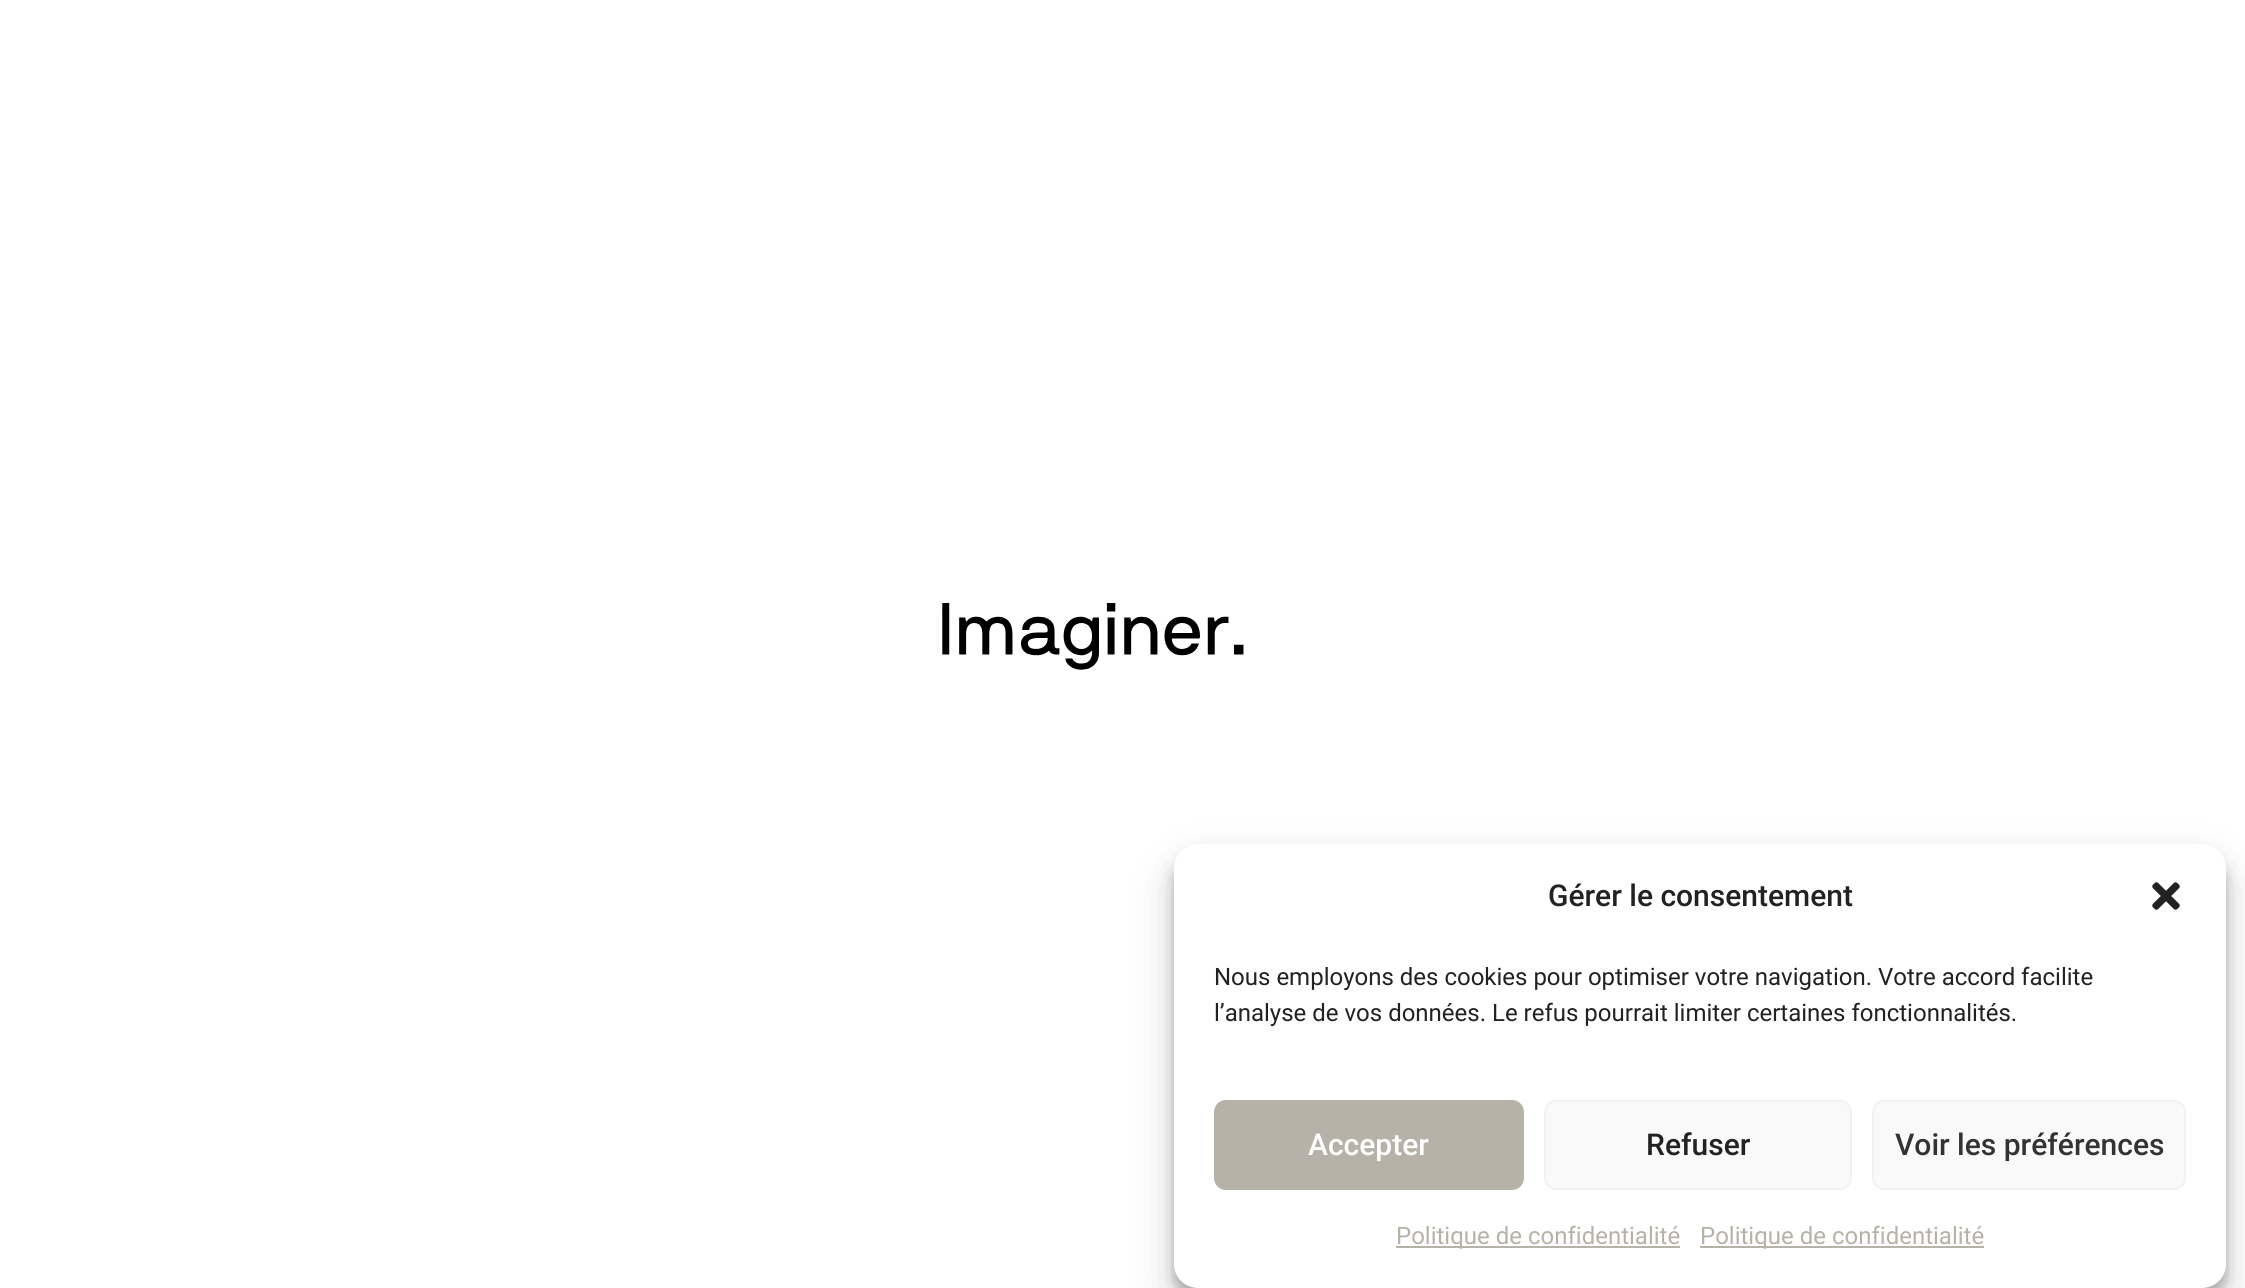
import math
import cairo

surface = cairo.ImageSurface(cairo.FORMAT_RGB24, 2245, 1288)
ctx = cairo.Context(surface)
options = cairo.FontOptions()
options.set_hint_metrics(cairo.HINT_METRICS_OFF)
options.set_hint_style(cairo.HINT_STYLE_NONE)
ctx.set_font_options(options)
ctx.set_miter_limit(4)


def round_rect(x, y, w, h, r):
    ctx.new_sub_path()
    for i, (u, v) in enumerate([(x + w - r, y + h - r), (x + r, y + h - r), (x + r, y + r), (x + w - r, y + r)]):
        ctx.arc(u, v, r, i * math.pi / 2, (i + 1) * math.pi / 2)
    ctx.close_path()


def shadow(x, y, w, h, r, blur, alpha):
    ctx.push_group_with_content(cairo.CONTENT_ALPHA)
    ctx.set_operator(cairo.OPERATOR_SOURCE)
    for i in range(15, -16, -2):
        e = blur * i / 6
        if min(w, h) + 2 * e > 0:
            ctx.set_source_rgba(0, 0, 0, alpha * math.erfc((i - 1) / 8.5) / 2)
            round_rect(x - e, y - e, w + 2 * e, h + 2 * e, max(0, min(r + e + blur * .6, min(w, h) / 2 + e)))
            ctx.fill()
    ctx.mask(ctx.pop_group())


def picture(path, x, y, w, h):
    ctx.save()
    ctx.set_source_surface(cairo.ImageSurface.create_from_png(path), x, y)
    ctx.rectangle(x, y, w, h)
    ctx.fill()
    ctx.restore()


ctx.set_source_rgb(1, 1, 1)
ctx.paint()
picture("img1.png", 942, 603, 302, 67)
ctx.set_source_rgb(0, 0, 0)
shadow(1174, 856, 1052, 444, 24, 6, 0.23)
shadow(1174, 864, 1052, 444, 24, 20, 0.19)
ctx.set_source_rgb(1, 1, 1)
round_rect(1174, 844, 1052, 444, 24)
ctx.fill()
ctx.select_font_face("Roboto Medium")
ctx.set_font_size(30)
ctx.set_source_rgb(0.133, 0.133, 0.133)
ctx.move_to(1548, 906)
ctx.show_text("Gérer le consentement")
picture("img2.png", 2152, 882, 28, 28)
ctx.select_font_face("Roboto")
ctx.set_font_size(24)
ctx.move_to(1214, 985)
ctx.show_text("Nous employons des cookies pour optimiser votre navigation. Votre accord facilite")
ctx.move_to(1214, 1021)
ctx.show_text("l’analyse de vos données. Le refus pourrait limiter certaines fonctionnalités.")
ctx.set_source_rgb(0.714, 0.698, 0.659)
round_rect(1215, 1101, 308, 88, 11)
ctx.fill_preserve()
ctx.stroke()
ctx.select_font_face("Roboto Medium")
ctx.set_font_size(30)
ctx.set_source_rgb(1, 1, 1)
ctx.move_to(1308, 1155)
ctx.show_text("Accepter")
ctx.set_source_rgb(0.976, 0.976, 0.976)
round_rect(1545, 1101, 306, 88, 11)
ctx.fill_preserve()
ctx.set_source_rgb(0.949, 0.949, 0.949)
ctx.stroke()
ctx.set_source_rgb(0.133, 0.133, 0.133)
ctx.move_to(1646, 1155)
ctx.show_text("Refuser")
ctx.set_source_rgb(0.976, 0.976, 0.976)
round_rect(1873, 1101, 312, 88, 11)
ctx.fill_preserve()
ctx.set_source_rgb(0.949, 0.949, 0.949)
ctx.stroke()
ctx.set_source_rgb(0.2, 0.2, 0.2)
ctx.move_to(1895, 1155)
ctx.show_text("Voir les préférences")
ctx.set_source_rgb(0.714, 0.698, 0.659)
ctx.rectangle(1396, 1246, 284, 2)
ctx.fill()
ctx.select_font_face("Roboto")
ctx.set_font_size(24)
ctx.move_to(1396, 1244)
ctx.show_text("Politique de confidentialité")
ctx.rectangle(1700, 1246, 284, 2)
ctx.fill()
ctx.move_to(1700, 1244)
ctx.show_text("Politique de confidentialité")
surface.write_to_png("page.png")
